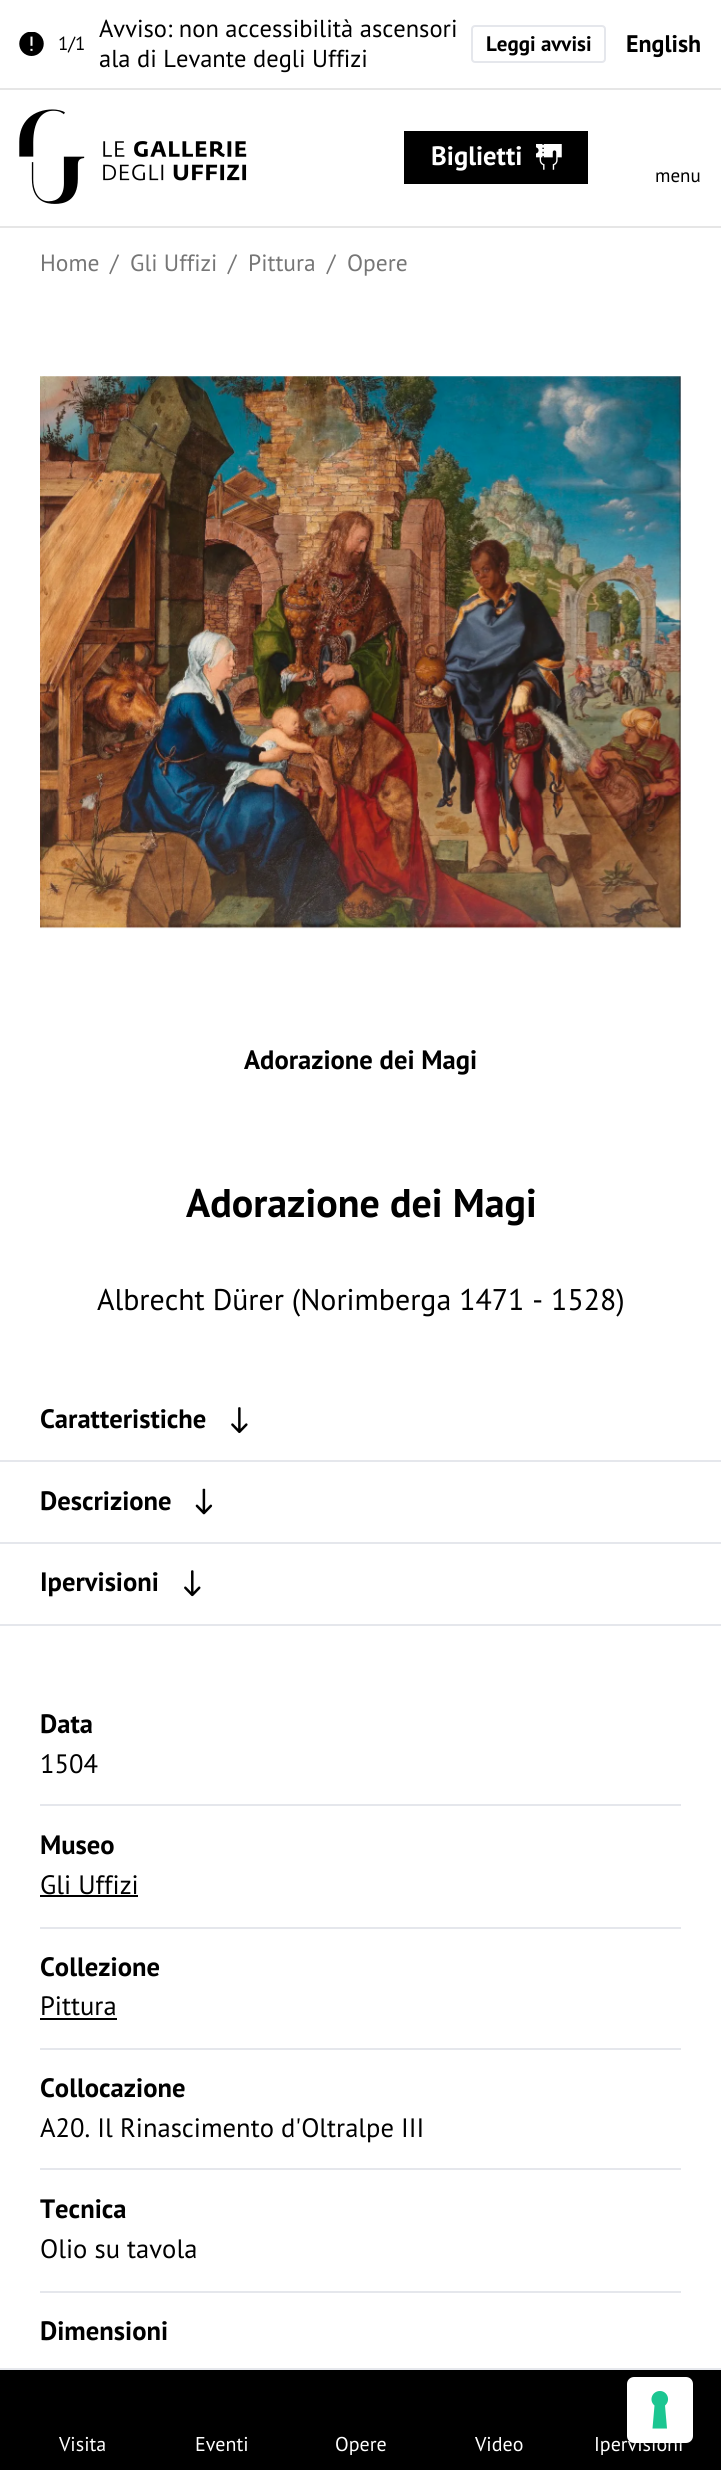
import math
import cairo

surface = cairo.ImageSurface(cairo.FORMAT_RGB24, 721, 2470)
ctx = cairo.Context(surface)
options = cairo.FontOptions()
options.set_hint_metrics(cairo.HINT_METRICS_OFF)
options.set_hint_style(cairo.HINT_STYLE_NONE)
ctx.set_font_options(options)
ctx.set_miter_limit(4)


def round_rect(x, y, w, h, r):
    ctx.new_sub_path()
    for i, (u, v) in enumerate([(x + w - r, y + h - r), (x + r, y + h - r), (x + r, y + r), (x + w - r, y + r)]):
        ctx.arc(u, v, r, i * math.pi / 2, (i + 1) * math.pi / 2)
    ctx.close_path()


def picture(path, x, y, w, h):
    ctx.save()
    ctx.set_source_surface(cairo.ImageSurface.create_from_png(path), x, y)
    ctx.rectangle(x, y, w, h)
    ctx.fill()
    ctx.restore()


ctx.set_source_rgb(1, 1, 1)
ctx.paint()
ctx.set_source_rgb(0.902, 0.902, 0.902)
ctx.rectangle(0, 88, 721, 2)
ctx.fill()
picture("img1.png", 19, 32, 25, 24)
ctx.select_font_face("PT Sans")
ctx.set_font_size(19)
ctx.set_source_rgb(0, 0, 0)
ctx.move_to(58, 50)
ctx.show_text("1/1")
ctx.set_font_size(24.5)
ctx.move_to(99, 37)
ctx.show_text("Avviso: non accessibilità ascensori")
ctx.move_to(99, 67)
ctx.show_text("ala di Levante degli Uffizi")
round_rect(472, 26, 133, 36, 3)
ctx.set_source_rgb(0.898, 0.906, 0.922)
ctx.stroke()
ctx.select_font_face("PT Sans", cairo.FONT_SLANT_NORMAL, cairo.FONT_WEIGHT_BOLD)
ctx.set_font_size(21)
ctx.set_source_rgb(0, 0, 0)
ctx.move_to(486, 51)
ctx.show_text("Leggi avvisi")
ctx.set_font_size(24)
ctx.move_to(626, 52)
ctx.show_text("English")
ctx.set_source_rgb(0.902, 0.902, 0.902)
ctx.rectangle(0, 226, 721, 2)
ctx.fill()
picture("img2.png", 19, 109, 228, 95)
ctx.set_source_rgb(0, 0, 0)
ctx.rectangle(404, 131, 184, 53)
ctx.fill()
ctx.set_font_size(26.6)
ctx.set_source_rgb(1, 1, 1)
ctx.move_to(431, 165)
ctx.show_text("Biglietti")
picture("img3.png", 536, 144, 26, 26)
ctx.select_font_face("PT Sans")
ctx.set_font_size(19)
ctx.set_source_rgb(0, 0, 0)
ctx.move_to(655, 182)
ctx.show_text("menu")
ctx.set_font_size(23.5)
ctx.set_source_rgb(0.463, 0.463, 0.463)
ctx.move_to(40, 271)
ctx.show_text("Home")
ctx.move_to(110, 271)
ctx.show_text("/")
ctx.move_to(130, 271)
ctx.show_text("Gli Uffizi")
ctx.move_to(228, 271)
ctx.show_text("/")
ctx.move_to(248, 271)
ctx.show_text("Pittura")
ctx.move_to(327, 271)
ctx.show_text("/")
ctx.move_to(347, 271)
ctx.show_text("Opere")
ctx.set_source_rgb(0, 0, 0)
ctx.rectangle(0, 2370, 721, 100)
ctx.fill()
ctx.set_source_rgb(0.898, 0.906, 0.922)
ctx.rectangle(0, 2368, 721, 2)
ctx.fill()
ctx.set_font_size(20)
ctx.set_source_rgb(1, 1, 1)
ctx.move_to(59, 2451)
ctx.show_text("Visita")
ctx.move_to(195, 2451)
ctx.show_text("Eventi")
ctx.move_to(335, 2451)
ctx.show_text("Opere")
ctx.move_to(475, 2451)
ctx.show_text("Video")
ctx.move_to(594, 2451)
ctx.show_text("Ipervisioni")
picture("img4.png", 40, 376, 641, 553)
ctx.select_font_face("PT Sans", cairo.FONT_SLANT_NORMAL, cairo.FONT_WEIGHT_BOLD)
ctx.set_font_size(26.6)
ctx.set_source_rgb(0, 0, 0)
ctx.move_to(244, 1069)
ctx.show_text("Adorazione dei Magi")
ctx.set_font_size(40)
ctx.move_to(186, 1217)
ctx.show_text("Adorazione dei Magi")
ctx.select_font_face("PT Sans")
ctx.set_font_size(29.9)
ctx.move_to(97, 1310)
ctx.show_text("Albrecht Dürer (Norimberga 1471 - 1528)")
ctx.set_source_rgb(0.898, 0.906, 0.922)
ctx.rectangle(0, 1460, 721, 2)
ctx.fill()
ctx.select_font_face("PT Sans", cairo.FONT_SLANT_NORMAL, cairo.FONT_WEIGHT_BOLD)
ctx.set_font_size(26.6)
ctx.set_source_rgb(0, 0, 0)
ctx.move_to(40, 1428)
ctx.show_text("Caratteristiche")
picture("img5.png", 231, 1407, 17, 27)
ctx.set_source_rgb(0.898, 0.906, 0.922)
ctx.rectangle(0, 1542, 721, 2)
ctx.fill()
ctx.set_source_rgb(0, 0, 0)
ctx.move_to(40, 1510)
ctx.show_text("Descrizione")
picture("img6.png", 195, 1488, 18, 27)
ctx.set_source_rgb(0.898, 0.906, 0.922)
ctx.rectangle(0, 1624, 721, 2)
ctx.fill()
ctx.set_source_rgb(0, 0, 0)
ctx.move_to(40, 1591)
ctx.show_text("Ipervisioni")
picture("img7.png", 184, 1570, 17, 27)
ctx.set_source_rgb(0.898, 0.906, 0.922)
ctx.rectangle(40, 1804, 641, 2)
ctx.fill()
ctx.set_source_rgb(0, 0, 0)
ctx.move_to(40, 1733)
ctx.show_text("Data")
ctx.select_font_face("PT Sans")
ctx.move_to(40, 1773)
ctx.show_text("1504")
ctx.set_source_rgb(0.898, 0.906, 0.922)
ctx.rectangle(40, 1927, 641, 2)
ctx.fill()
ctx.select_font_face("PT Sans", cairo.FONT_SLANT_NORMAL, cairo.FONT_WEIGHT_BOLD)
ctx.set_source_rgb(0, 0, 0)
ctx.move_to(40, 1854)
ctx.show_text("Museo")
ctx.select_font_face("PT Sans")
ctx.move_to(40, 1894)
ctx.show_text("Gli Uffizi")
ctx.rectangle(40, 1895, 98, 2)
ctx.fill()
ctx.set_source_rgb(0.898, 0.906, 0.922)
ctx.rectangle(40, 2048, 641, 2)
ctx.fill()
ctx.select_font_face("PT Sans", cairo.FONT_SLANT_NORMAL, cairo.FONT_WEIGHT_BOLD)
ctx.set_source_rgb(0, 0, 0)
ctx.move_to(40, 1976)
ctx.show_text("Collezione")
ctx.select_font_face("PT Sans")
ctx.move_to(40, 2015)
ctx.show_text("Pittura")
ctx.rectangle(40, 2018, 77, 2)
ctx.fill()
ctx.set_source_rgb(0.898, 0.906, 0.922)
ctx.rectangle(40, 2168, 641, 2)
ctx.fill()
ctx.select_font_face("PT Sans", cairo.FONT_SLANT_NORMAL, cairo.FONT_WEIGHT_BOLD)
ctx.set_source_rgb(0, 0, 0)
ctx.move_to(40, 2097)
ctx.show_text("Collocazione")
ctx.select_font_face("PT Sans")
ctx.move_to(40, 2137)
ctx.show_text("A20. Il Rinascimento d'Oltralpe III")
ctx.set_source_rgb(0.898, 0.906, 0.922)
ctx.rectangle(40, 2291, 641, 2)
ctx.fill()
ctx.select_font_face("PT Sans", cairo.FONT_SLANT_NORMAL, cairo.FONT_WEIGHT_BOLD)
ctx.set_source_rgb(0, 0, 0)
ctx.move_to(40, 2218)
ctx.show_text("Tecnica")
ctx.select_font_face("PT Sans")
ctx.move_to(40, 2258)
ctx.show_text("Olio su tavola")
ctx.select_font_face("PT Sans", cairo.FONT_SLANT_NORMAL, cairo.FONT_WEIGHT_BOLD)
ctx.move_to(40, 2340)
ctx.show_text("Dimensioni")
round_rect(626, 2376, 68, 68, 8)
ctx.set_source_rgba(0, 0, 0, 0.15)
ctx.stroke()
ctx.set_source_rgb(1, 1, 1)
round_rect(627, 2377, 66, 66, 7)
ctx.fill()
ctx.set_source_rgb(0.11, 0.776, 0.569)
ctx.set_fill_rule(cairo.FILL_RULE_EVEN_ODD)
ctx.new_path()
ctx.move_to(660, 2391)
ctx.curve_to(667.5, 2391, 671, 2400.5, 665, 2405.5)
ctx.line_to(667, 2428.5)
ctx.line_to(652.5, 2428.5)
ctx.line_to(654.5, 2405.5)
ctx.curve_to(648.5, 2400.5, 652, 2391, 660, 2391)
ctx.close_path()
ctx.fill()
surface.write_to_png("page.png")
